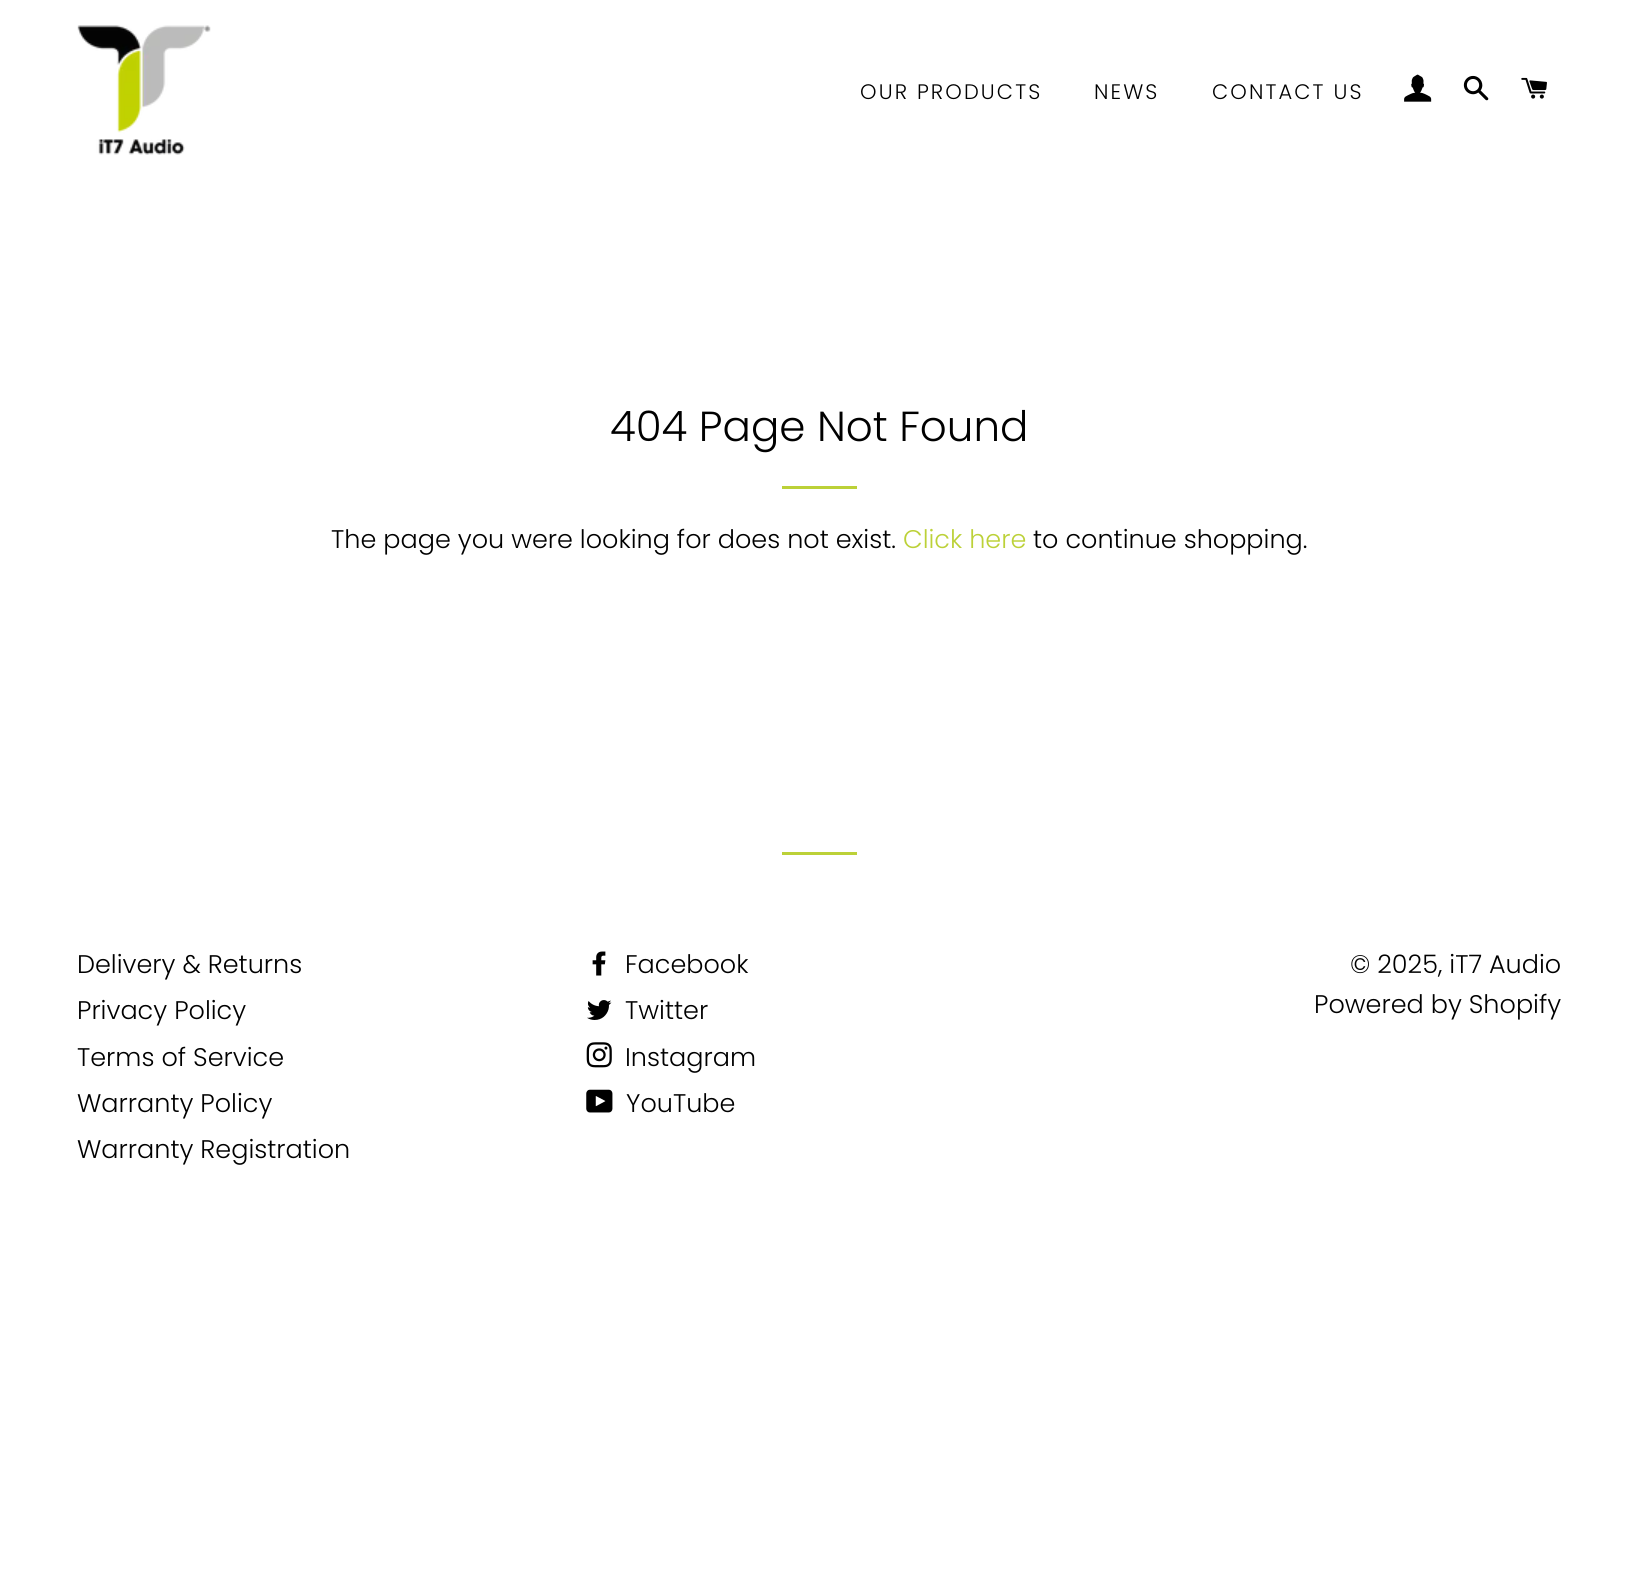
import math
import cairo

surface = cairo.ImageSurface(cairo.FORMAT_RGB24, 1638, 1577)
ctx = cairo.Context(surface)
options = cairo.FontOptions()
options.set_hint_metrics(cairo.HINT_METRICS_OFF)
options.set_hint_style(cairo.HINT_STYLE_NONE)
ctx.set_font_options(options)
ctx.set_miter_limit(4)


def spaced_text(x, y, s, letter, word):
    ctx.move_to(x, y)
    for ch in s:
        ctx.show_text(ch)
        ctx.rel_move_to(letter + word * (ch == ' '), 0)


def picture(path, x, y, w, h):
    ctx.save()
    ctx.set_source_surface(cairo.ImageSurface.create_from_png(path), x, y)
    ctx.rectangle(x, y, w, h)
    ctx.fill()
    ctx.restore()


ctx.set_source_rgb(1, 1, 1)
ctx.paint()
picture("img1.png", 77, 25, 134, 130)
ctx.select_font_face("Poppins Light")
ctx.set_font_size(21)
ctx.set_source_rgb(0, 0, 0)
spaced_text(860, 99, "OUR PRODUCTS", 2.1, 0)
spaced_text(1094, 99, "NEWS", 2.1, 0)
spaced_text(1212, 99, "CONTACT US", 2.1, 0)
picture("img2.png", 1404, 74, 28, 28)
picture("img3.png", 1463, 75, 26, 26)
picture("img4.png", 1521, 77, 26, 22)
ctx.set_font_size(42)
ctx.move_to(610, 441)
ctx.show_text("404 Page Not Found")
ctx.set_source_rgb(0.737, 0.82, 0.22)
ctx.rectangle(782, 486, 75, 3)
ctx.fill()
ctx.set_font_size(25.5)
ctx.set_source_rgb(0, 0, 0)
ctx.move_to(331, 548)
ctx.show_text("The page you were looking for does not exist.")
ctx.set_source_rgb(0.737, 0.82, 0.22)
ctx.move_to(903, 548)
ctx.show_text("Click here")
ctx.set_source_rgb(0, 0, 0)
ctx.move_to(1033, 548)
ctx.show_text("to continue shopping.")
ctx.set_source_rgb(0.737, 0.82, 0.22)
ctx.rectangle(782, 852, 75, 3)
ctx.fill()
ctx.set_source_rgb(0, 0, 0)
ctx.move_to(77, 973)
ctx.show_text("Delivery & Returns")
ctx.move_to(77, 1019)
ctx.show_text("Privacy Policy")
ctx.move_to(77, 1066)
ctx.show_text("Terms of Service")
ctx.move_to(77, 1112)
ctx.show_text("Warranty Policy")
ctx.move_to(77, 1158)
ctx.show_text("Warranty Registration")
picture("img5.png", 592, 951, 14, 25)
ctx.move_to(625, 973)
ctx.show_text("Facebook")
picture("img6.png", 587, 1000, 25, 20)
ctx.move_to(625, 1019)
ctx.show_text("Twitter")
picture("img7.png", 586, 1042, 26, 26)
ctx.move_to(625, 1066)
ctx.show_text("Instagram")
picture("img8.png", 586, 1089, 27, 24)
ctx.move_to(626, 1112)
ctx.show_text("YouTube")
ctx.move_to(1350, 973)
ctx.show_text("© 2025, iT7 Audio")
ctx.move_to(1314, 1013)
ctx.show_text("Powered by Shopify")
surface.write_to_png("page.png")
